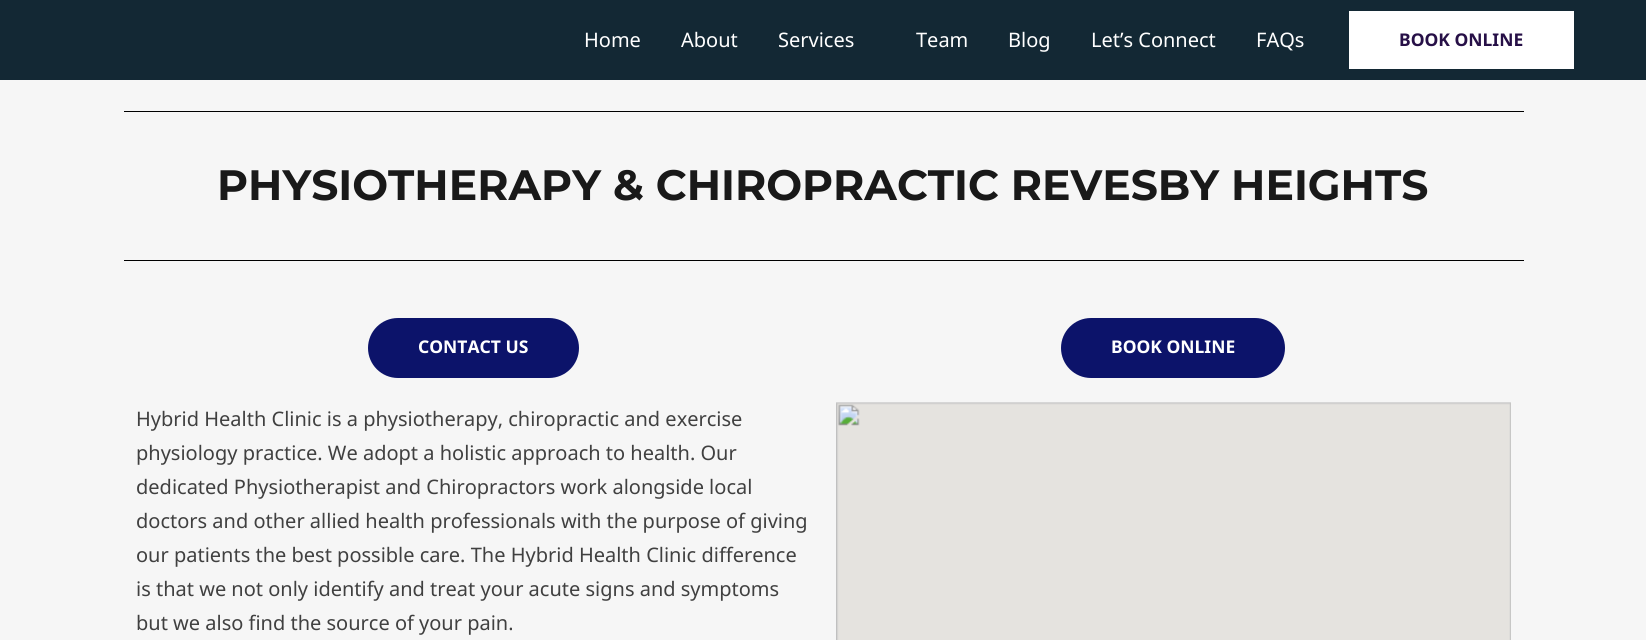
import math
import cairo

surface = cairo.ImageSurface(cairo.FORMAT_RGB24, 1646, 640)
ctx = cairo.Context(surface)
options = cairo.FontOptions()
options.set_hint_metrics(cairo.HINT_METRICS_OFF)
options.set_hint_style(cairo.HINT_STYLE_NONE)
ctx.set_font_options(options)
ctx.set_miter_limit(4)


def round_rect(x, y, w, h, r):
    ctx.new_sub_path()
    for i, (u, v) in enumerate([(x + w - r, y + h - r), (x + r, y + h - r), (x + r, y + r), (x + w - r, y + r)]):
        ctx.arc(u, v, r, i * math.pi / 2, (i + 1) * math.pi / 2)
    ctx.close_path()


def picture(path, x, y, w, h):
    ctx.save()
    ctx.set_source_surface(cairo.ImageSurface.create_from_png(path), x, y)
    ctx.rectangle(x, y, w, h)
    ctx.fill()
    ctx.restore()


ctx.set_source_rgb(0.961, 0.961, 0.961)
ctx.paint()
ctx.set_source_rgb(0.075, 0.157, 0.204)
ctx.rectangle(0, 0, 1646, 80)
ctx.fill()
ctx.select_font_face("Noto Sans")
ctx.set_font_size(20)
ctx.set_source_rgb(1, 1, 1)
ctx.move_to(584, 47)
ctx.show_text("Home")
ctx.move_to(681, 47)
ctx.show_text("About")
ctx.move_to(778, 47)
ctx.show_text("Services")
ctx.move_to(916, 47)
ctx.show_text("Team")
ctx.move_to(1008, 47)
ctx.show_text("Blog")
ctx.move_to(1091, 47)
ctx.show_text("Let’s Connect")
ctx.move_to(1256, 47)
ctx.show_text("FAQs")
ctx.rectangle(1349, 11, 225, 58)
ctx.fill()
ctx.select_font_face("Noto Sans", cairo.FONT_SLANT_NORMAL, cairo.FONT_WEIGHT_BOLD)
ctx.set_font_size(17.5)
ctx.set_source_rgb(0.153, 0.063, 0.278)
ctx.move_to(1399, 46)
ctx.show_text("BOOK ONLINE")
ctx.set_source_rgb(0, 0, 0)
ctx.rectangle(124, 111, 1400, 1)
ctx.fill()
ctx.select_font_face("Montserrat Thin")
ctx.set_font_size(42.5)
ctx.set_source_rgb(0.098, 0.098, 0.098)
ctx.move_to(217, 200)
ctx.show_text("PHYSIOTHERAPY & CHIROPRACTIC REVESBY HEIGHTS")
ctx.set_source_rgb(0, 0, 0)
ctx.rectangle(124, 260, 1400, 1)
ctx.fill()
ctx.set_source_rgb(0.047, 0.078, 0.416)
round_rect(368, 318, 211, 60, 30)
ctx.fill()
ctx.select_font_face("Noto Sans", cairo.FONT_SLANT_NORMAL, cairo.FONT_WEIGHT_BOLD)
ctx.set_font_size(17.5)
ctx.set_source_rgb(1, 1, 1)
ctx.move_to(418, 353)
ctx.show_text("CONTACT US")
ctx.set_source_rgb(0.047, 0.078, 0.416)
round_rect(1061, 318, 224, 60, 30)
ctx.fill()
ctx.set_source_rgb(1, 1, 1)
ctx.move_to(1111, 353)
ctx.show_text("BOOK ONLINE")
ctx.select_font_face("Noto Sans")
ctx.set_font_size(20)
ctx.set_source_rgb(0.251, 0.251, 0.251)
ctx.move_to(136, 426)
ctx.show_text("Hybrid Health Clinic is a physiotherapy, chiropractic and exercise")
ctx.move_to(136, 460)
ctx.show_text("physiology practice. We adopt a holistic approach to health. Our")
ctx.move_to(136, 494)
ctx.show_text("dedicated Physiotherapist and Chiropractors work alongside local")
ctx.move_to(136, 528)
ctx.show_text("doctors and other allied health professionals with the purpose of giving")
ctx.move_to(136, 562)
ctx.show_text("our patients the best possible care. The Hybrid Health Clinic difference")
ctx.move_to(136, 596)
ctx.show_text("is that we not only identify and treat your acute signs and symptoms")
ctx.move_to(136, 630)
ctx.show_text("but we also find the source of your pain.")
picture("img1.png", 836, 402, 675, 238)
surface.write_to_png("page.png")
